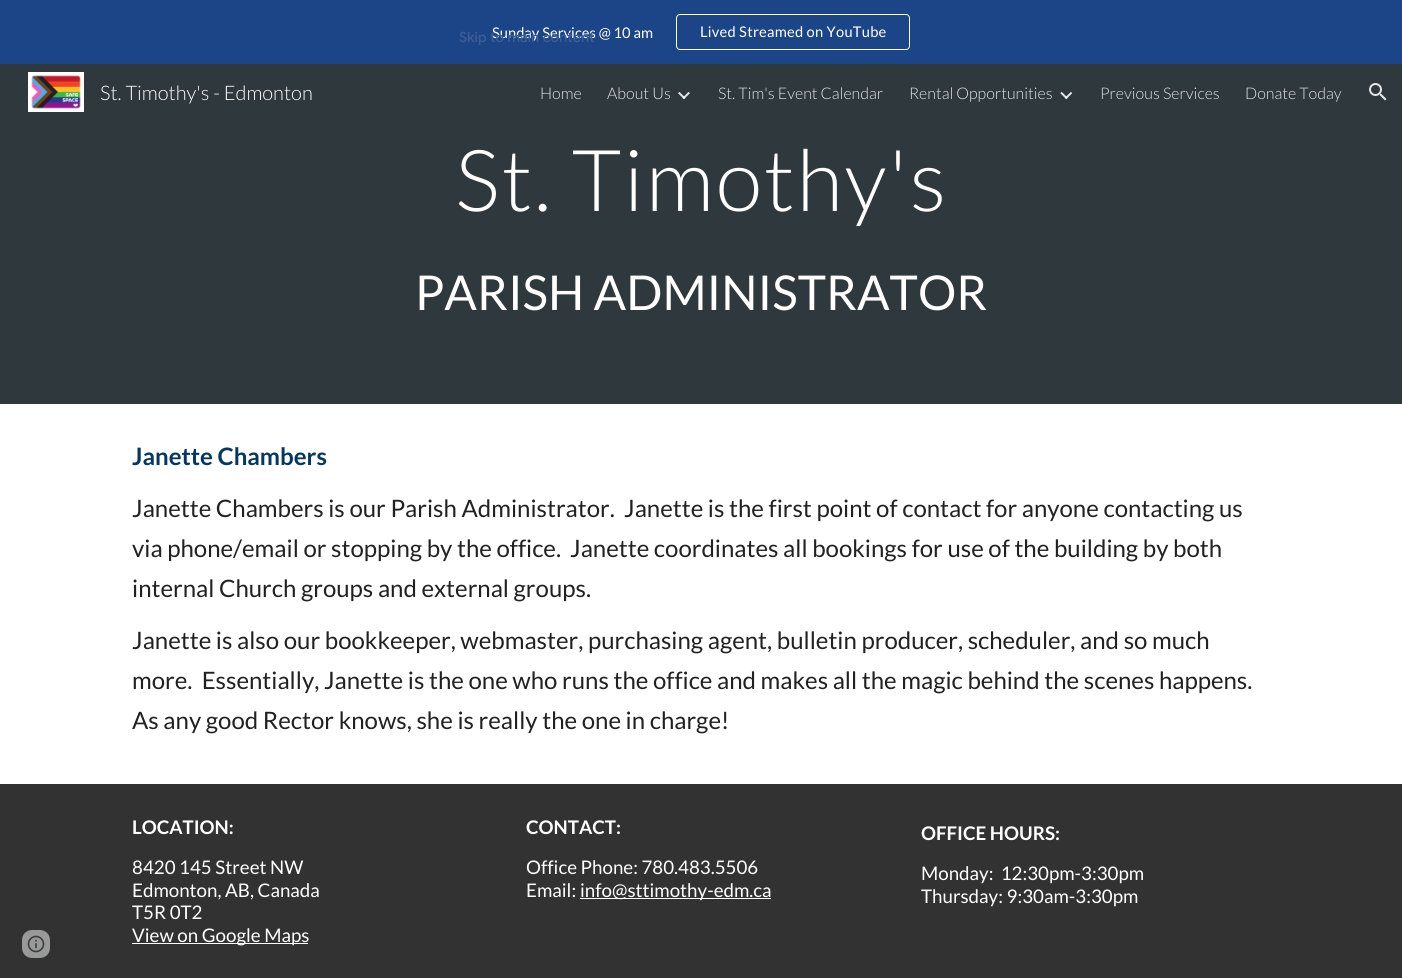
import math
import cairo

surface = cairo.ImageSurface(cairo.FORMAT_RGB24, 1402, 978)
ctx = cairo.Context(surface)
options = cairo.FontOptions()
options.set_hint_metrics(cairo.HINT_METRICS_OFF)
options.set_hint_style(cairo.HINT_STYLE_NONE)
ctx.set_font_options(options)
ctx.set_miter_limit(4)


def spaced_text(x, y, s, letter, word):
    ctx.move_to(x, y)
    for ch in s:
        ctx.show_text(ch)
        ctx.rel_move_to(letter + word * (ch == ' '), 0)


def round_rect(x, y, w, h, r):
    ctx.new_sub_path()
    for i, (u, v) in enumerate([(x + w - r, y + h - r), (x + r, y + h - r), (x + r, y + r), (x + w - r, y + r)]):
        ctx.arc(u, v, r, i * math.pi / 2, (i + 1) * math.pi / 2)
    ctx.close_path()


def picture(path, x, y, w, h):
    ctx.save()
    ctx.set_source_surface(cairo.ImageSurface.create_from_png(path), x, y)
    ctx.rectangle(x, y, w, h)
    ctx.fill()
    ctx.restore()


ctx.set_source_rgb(1, 1, 1)
ctx.paint()
ctx.set_source_rgb(0.11, 0.271, 0.529)
ctx.rectangle(0, 0, 1402, 64)
ctx.fill()
ctx.select_font_face("Lato")
ctx.set_font_size(14.7)
ctx.set_source_rgb(1, 1, 1)
ctx.move_to(492, 38)
ctx.show_text("Sunday Services @ 10 am")
round_rect(676.5, 14.5, 233, 35, 3.5)
ctx.set_line_width(1)
ctx.stroke()
spaced_text(700, 37, "Lived Streamed on YouTube", 0.25, 0)
ctx.set_source_rgb(0.18, 0.22, 0.239)
ctx.rectangle(0, 64, 1402, 340)
ctx.fill()
picture("img1.png", 28, 72, 56, 40)
ctx.select_font_face("Lato Light")
ctx.set_font_size(20)
ctx.set_source_rgb(1, 1, 1)
ctx.move_to(100, 100)
ctx.show_text("St. Timothy's - Edmonton")
ctx.set_font_size(16)
ctx.set_source_rgb(0.894, 0.898, 0.902)
ctx.move_to(540, 99)
ctx.show_text("Home")
ctx.move_to(607, 99)
ctx.show_text("About Us")
picture("img2.png", 678, 91, 12, 9)
ctx.move_to(718, 99)
ctx.show_text("St. Tim's Event Calendar")
ctx.move_to(909, 99)
ctx.show_text("Rental Opportunities")
picture("img3.png", 1060, 91, 13, 9)
ctx.move_to(1100, 99)
ctx.show_text("Previous Services")
ctx.move_to(1245, 99)
ctx.show_text("Donate Today")
picture("img4.png", 1369, 83, 18, 18)
ctx.set_font_size(85.5)
ctx.set_source_rgb(1, 1, 1)
spaced_text(455, 211, "St. Timothy's", 2, 0)
ctx.select_font_face("Lato")
ctx.set_font_size(48)
ctx.move_to(415, 310)
ctx.show_text("PARISH ADMINISTRATOR")
ctx.select_font_face("Lato", cairo.FONT_SLANT_NORMAL, cairo.FONT_WEIGHT_BOLD)
ctx.set_font_size(24)
ctx.set_source_rgb(0.027, 0.216, 0.388)
ctx.move_to(132, 465)
ctx.show_text("Janette Chambers")
ctx.select_font_face("Lato")
ctx.set_source_rgb(0.129, 0.129, 0.129)
ctx.move_to(132, 517)
ctx.show_text("Janette Chambers is our Parish Administrator.")
ctx.move_to(624, 517)
ctx.show_text("Janette is the first point of contact for anyone contacting us")
ctx.move_to(132, 557)
ctx.show_text("via phone/email or stopping by the office.")
ctx.move_to(570, 557)
ctx.show_text("Janette coordinates all bookings for use of the building by both")
ctx.move_to(132, 597)
ctx.show_text("internal Church groups and external groups.")
ctx.move_to(132, 649)
ctx.show_text("Janette is also our bookkeeper, webmaster, purchasing agent, bulletin producer, scheduler, and so much")
ctx.move_to(132, 689)
ctx.show_text("more.  Essentially, Janette is the one who runs the office and makes all the magic behind the scenes happens.")
ctx.move_to(132, 729)
ctx.show_text("As any good Rector knows, she is really the one in charge!")
ctx.set_source_rgb(0.196, 0.196, 0.196)
ctx.rectangle(0, 784, 1402, 194)
ctx.fill()
ctx.set_source_rgb(0.6, 0.6, 0.6)
round_rect(22, 930, 28, 28, 10)
ctx.fill()
picture("img5.png", 27, 935, 18, 18)
ctx.select_font_face("Lato", cairo.FONT_SLANT_NORMAL, cairo.FONT_WEIGHT_BOLD)
ctx.set_font_size(18.75)
ctx.set_source_rgb(1, 1, 1)
ctx.move_to(132, 834)
ctx.show_text("LOCATION:")
ctx.select_font_face("Lato")
ctx.move_to(132, 874)
ctx.show_text("8420 145 Street NW")
ctx.move_to(132, 897)
ctx.show_text("Edmonton, AB, Canada")
ctx.move_to(132, 919)
ctx.show_text("T5R 0T2")
ctx.rectangle(132, 943, 176, 1)
ctx.fill()
ctx.move_to(132, 942)
ctx.show_text("View on Google Maps")
ctx.select_font_face("Lato", cairo.FONT_SLANT_NORMAL, cairo.FONT_WEIGHT_BOLD)
ctx.move_to(526, 834)
ctx.show_text("CONTACT:")
ctx.select_font_face("Lato")
ctx.move_to(526, 874)
ctx.show_text("Office Phone: 780.483.5506")
ctx.move_to(526, 897)
ctx.show_text("Email:")
ctx.rectangle(580, 898, 191, 1)
ctx.fill()
ctx.move_to(580, 897)
ctx.show_text("info@sttimothy-edm.ca")
ctx.select_font_face("Lato", cairo.FONT_SLANT_NORMAL, cairo.FONT_WEIGHT_BOLD)
ctx.move_to(921, 840)
ctx.show_text("OFFICE HOURS:")
ctx.select_font_face("Lato")
ctx.move_to(921, 880)
ctx.show_text("Monday:  12:30pm-3:30pm")
ctx.move_to(921, 903)
ctx.show_text("Thursday: 9:30am-3:30pm")
ctx.select_font_face("Google Sans Medium")
ctx.set_font_size(14)
ctx.set_source_rgb(0.227, 0.369, 0.592)
spaced_text(459, 42, "Skip to main content", 0.1, 0)
surface.write_to_png("page.png")
